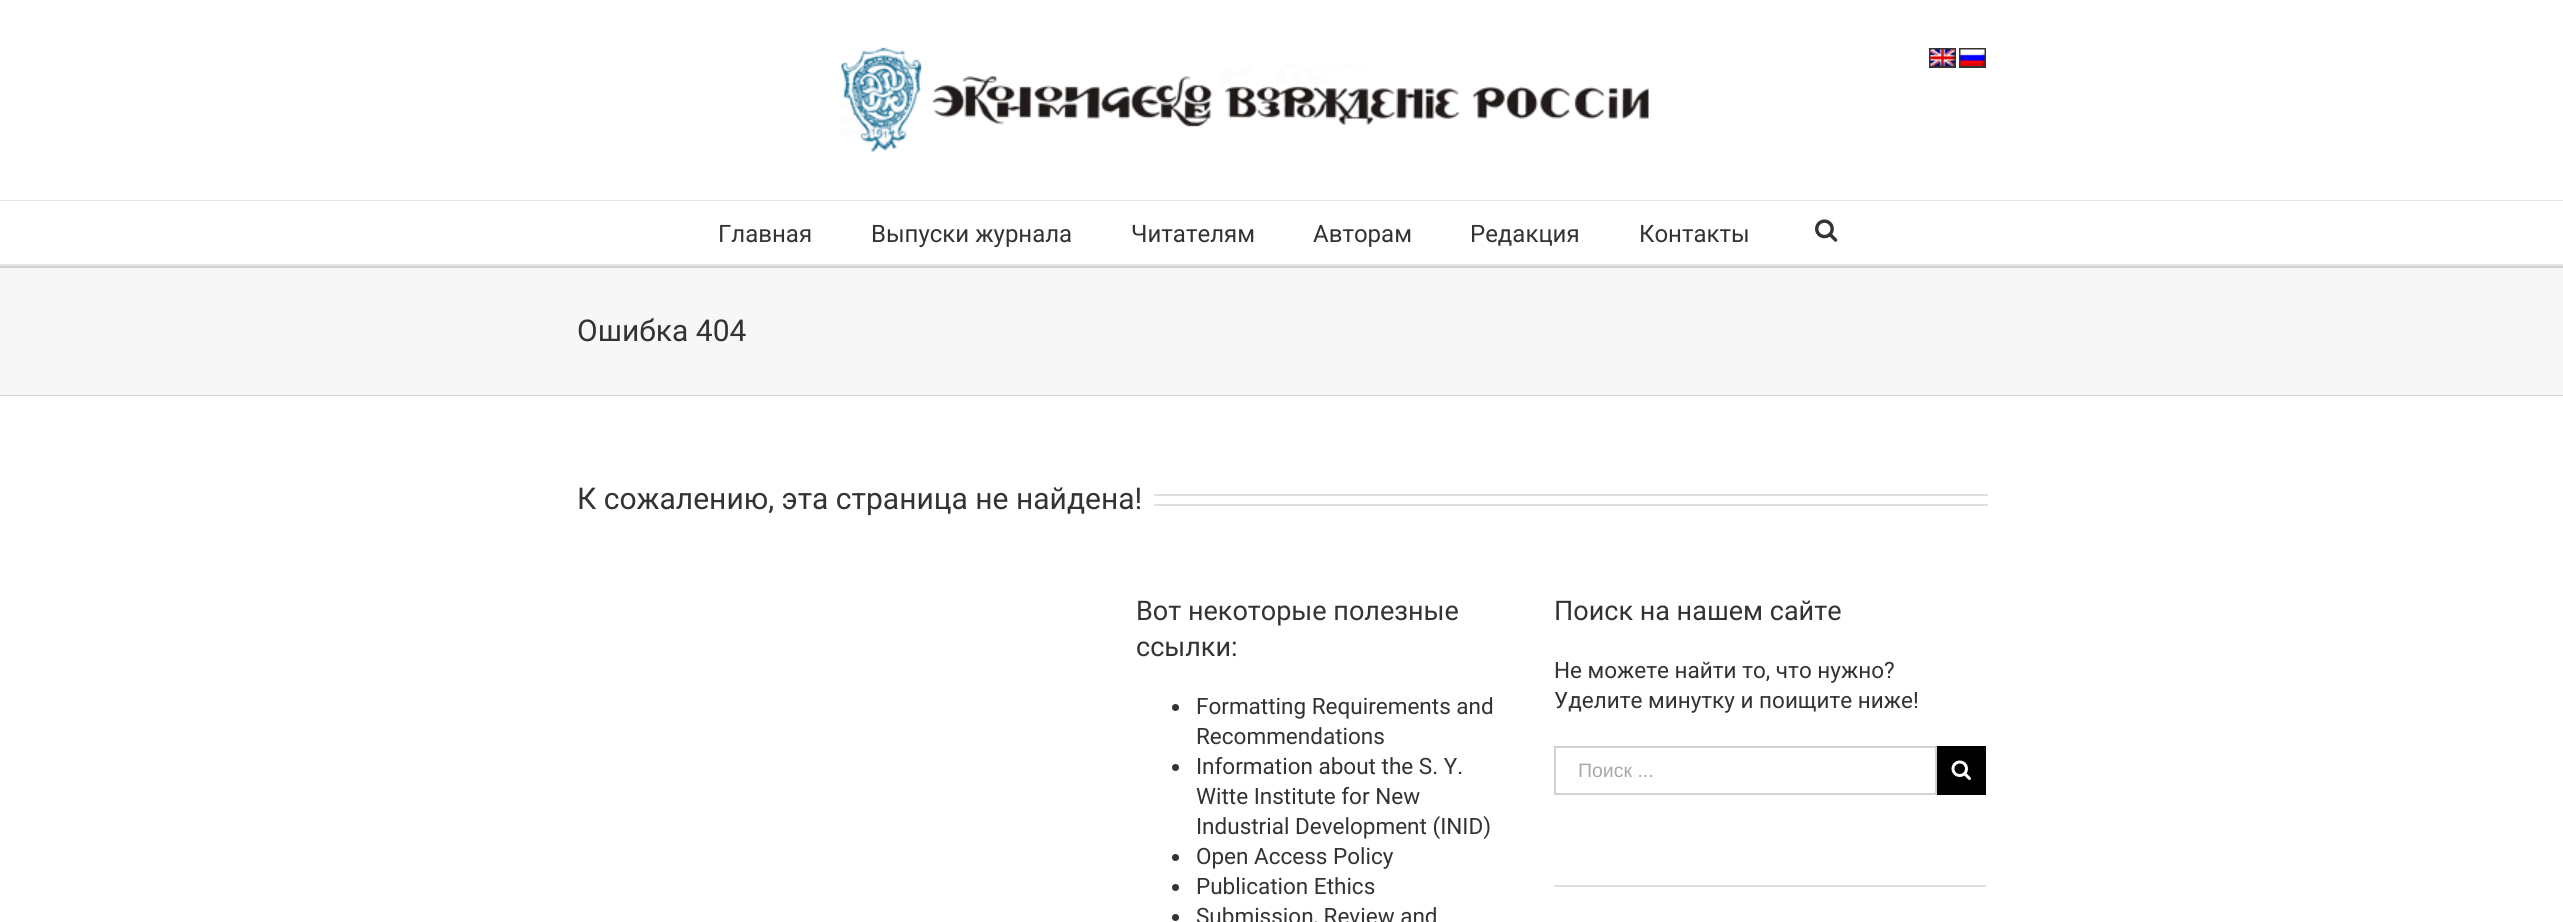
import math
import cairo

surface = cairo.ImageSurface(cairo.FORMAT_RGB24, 2563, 922)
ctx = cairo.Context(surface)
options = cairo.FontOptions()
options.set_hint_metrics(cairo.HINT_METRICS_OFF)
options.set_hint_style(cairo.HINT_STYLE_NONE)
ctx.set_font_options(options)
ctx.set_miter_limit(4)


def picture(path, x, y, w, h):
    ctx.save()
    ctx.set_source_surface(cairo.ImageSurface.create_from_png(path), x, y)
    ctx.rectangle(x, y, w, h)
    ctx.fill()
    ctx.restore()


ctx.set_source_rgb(1, 1, 1)
ctx.paint()
ctx.set_source_rgb(0.898, 0.898, 0.898)
ctx.rectangle(0, 200, 2563, 1)
ctx.fill()
picture("img1.png", 839, 47, 810, 105)
ctx.rectangle(1930, 49, 25, 18)
ctx.set_source_rgb(0.2, 0.2, 0.2)
ctx.stroke()
ctx.rectangle(1960, 49, 25, 18)
ctx.stroke()
picture("img2.png", 1930, 49, 25, 17)
picture("img3.png", 1960, 49, 25, 17)
ctx.set_source_rgb(0.898, 0.898, 0.898)
ctx.rectangle(0, 264, 2563, 2)
ctx.fill()
ctx.select_font_face("Roboto")
ctx.set_font_size(24)
ctx.set_source_rgb(0.2, 0.2, 0.2)
ctx.move_to(718, 242)
ctx.show_text("Главная")
ctx.move_to(871, 242)
ctx.show_text("Выпуски журнала")
ctx.move_to(1131, 242)
ctx.show_text("Читателям")
ctx.move_to(1313, 242)
ctx.show_text("Авторам")
ctx.move_to(1470, 242)
ctx.show_text("Редакция")
ctx.move_to(1639, 242)
ctx.show_text("Контакты")
picture("img4.png", 1815, 219, 23, 23)
ctx.set_source_rgb(0.965, 0.965, 0.965)
ctx.rectangle(0, 268, 2563, 127)
ctx.fill()
ctx.set_source_rgb(0.824, 0.827, 0.831)
ctx.rectangle(0, 266, 2563, 2)
ctx.fill()
ctx.rectangle(0, 395, 2563, 1)
ctx.fill()
ctx.set_font_size(30)
ctx.set_source_rgb(0.2, 0.2, 0.2)
ctx.move_to(577, 341)
ctx.show_text("Ошибка 404")
ctx.move_to(577, 509)
ctx.show_text("К сожалению, эта страница не найдена!")
ctx.set_source_rgb(0.878, 0.871, 0.871)
ctx.rectangle(1154, 494, 834, 2)
ctx.fill()
ctx.rectangle(1154, 504, 834, 2)
ctx.fill()
ctx.set_font_size(27)
ctx.set_source_rgb(0.2, 0.2, 0.2)
ctx.move_to(1136, 620)
ctx.show_text("Вот некоторые полезные")
ctx.move_to(1136, 656)
ctx.show_text("ссылки:")
ctx.new_path()
ctx.arc(1175.5, 707.5, 3.5, 0, 2 * math.pi)
ctx.fill()
ctx.set_font_size(22.5)
ctx.move_to(1196, 714)
ctx.show_text("Formatting Requirements and")
ctx.move_to(1196, 744)
ctx.show_text("Recommendations")
ctx.new_path()
ctx.arc(1175.5, 767.5, 3.5, 0, 2 * math.pi)
ctx.fill()
ctx.move_to(1196, 774)
ctx.show_text("Information about the S. Y.")
ctx.move_to(1196, 804)
ctx.show_text("Witte Institute for New")
ctx.move_to(1196, 834)
ctx.show_text("Industrial Development (INID)")
ctx.new_path()
ctx.arc(1175.5, 857.5, 3.5, 0, 2 * math.pi)
ctx.fill()
ctx.move_to(1196, 864)
ctx.show_text("Open Access Policy")
ctx.new_path()
ctx.arc(1175.5, 887.5, 3.5, 0, 2 * math.pi)
ctx.fill()
ctx.move_to(1196, 894)
ctx.show_text("Publication Ethics")
ctx.new_path()
ctx.arc(1175.5, 917.5, 3.5, 0, 2 * math.pi)
ctx.fill()
ctx.move_to(1196, 924)
ctx.show_text("Submission, Review and")
ctx.set_font_size(27)
ctx.move_to(1554, 620)
ctx.show_text("Поиск на нашем сайте")
ctx.set_font_size(22.5)
ctx.move_to(1554, 678)
ctx.show_text("Не можете найти то, что нужно?")
ctx.move_to(1554, 708)
ctx.show_text("Уделите минутку и поищите ниже!")
ctx.set_source_rgb(0.878, 0.871, 0.871)
ctx.rectangle(1554, 885, 432, 2)
ctx.fill()
ctx.rectangle(1555, 747, 381, 47)
ctx.set_source_rgb(0.824, 0.824, 0.824)
ctx.stroke()
ctx.select_font_face("Liberation Sans")
ctx.set_font_size(19.5)
ctx.set_source_rgb(0.667, 0.663, 0.663)
ctx.move_to(1578, 777)
ctx.show_text("Поиск ...")
ctx.set_source_rgb(0, 0, 0)
ctx.rectangle(1937, 746, 49, 49)
ctx.fill()
picture("img5.png", 1951, 760, 20, 20)
surface.write_to_png("page.png")
